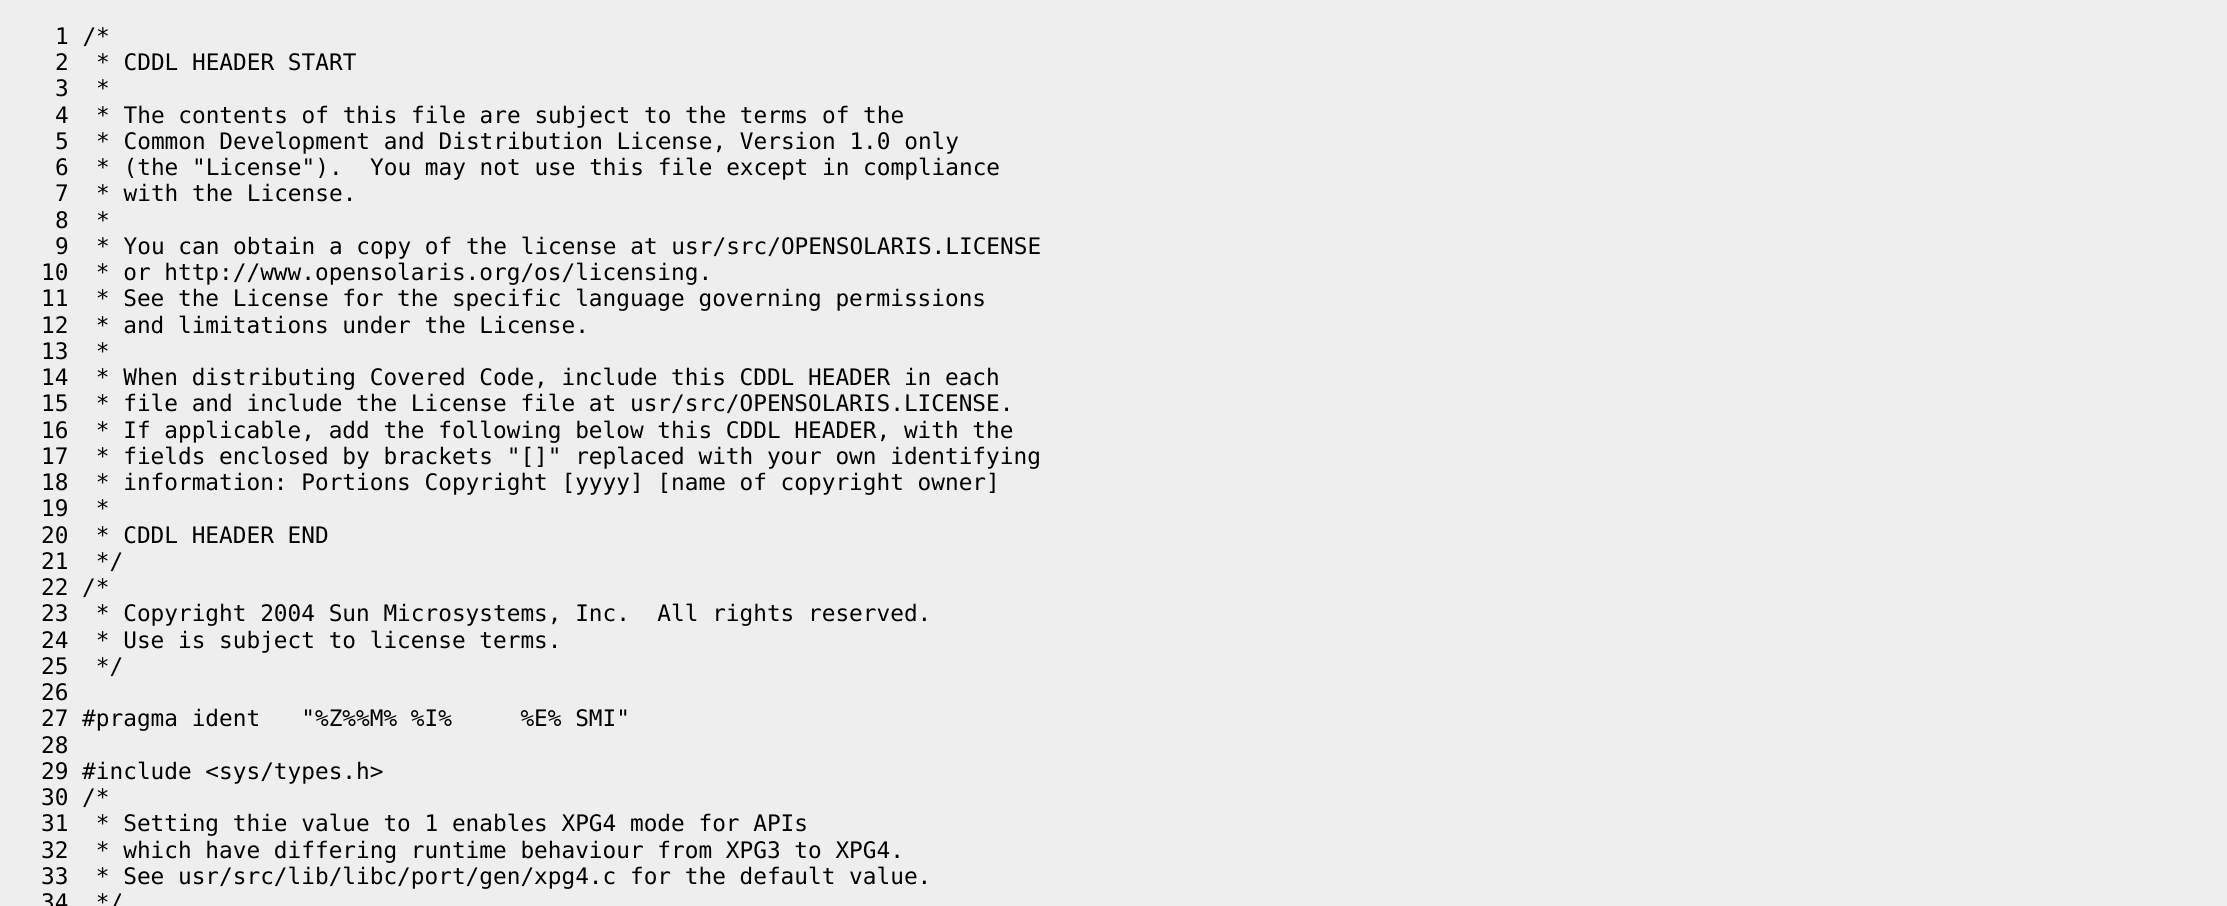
import math
import cairo

surface = cairo.ImageSurface(cairo.FORMAT_RGB24, 2227, 906)
ctx = cairo.Context(surface)
options = cairo.FontOptions()
options.set_hint_metrics(cairo.HINT_METRICS_OFF)
options.set_hint_style(cairo.HINT_STYLE_NONE)
ctx.set_font_options(options)
ctx.set_miter_limit(4)


ctx.set_source_rgb(0.933, 0.933, 0.933)
ctx.paint()
ctx.select_font_face("DejaVu Sans Mono")
ctx.set_font_size(22.75)
ctx.set_source_rgb(0, 0, 0)
ctx.move_to(55, 44)
ctx.show_text("1 /*")
ctx.move_to(55, 70)
ctx.show_text("2  * CDDL HEADER START")
ctx.move_to(55, 96)
ctx.show_text("3  *")
ctx.move_to(55, 123)
ctx.show_text("4  * The contents of this file are subject to the terms of the")
ctx.move_to(55, 149)
ctx.show_text("5  * Common Development and Distribution License, Version 1.0 only")
ctx.move_to(55, 175)
ctx.show_text("6  * (the \"License\").  You may not use this file except in compliance")
ctx.move_to(55, 201)
ctx.show_text("7  * with the License.")
ctx.move_to(55, 228)
ctx.show_text("8  *")
ctx.move_to(55, 254)
ctx.show_text("9  * You can obtain a copy of the license at usr/src/OPENSOLARIS.LICENSE")
ctx.move_to(41, 280)
ctx.show_text("10  * or http://www.opensolaris.org/os/licensing.")
ctx.move_to(41, 306)
ctx.show_text("11  * See the License for the specific language governing permissions")
ctx.move_to(41, 333)
ctx.show_text("12  * and limitations under the License.")
ctx.move_to(41, 359)
ctx.show_text("13  *")
ctx.move_to(41, 385)
ctx.show_text("14  * When distributing Covered Code, include this CDDL HEADER in each")
ctx.move_to(41, 411)
ctx.show_text("15  * file and include the License file at usr/src/OPENSOLARIS.LICENSE.")
ctx.move_to(41, 438)
ctx.show_text("16  * If applicable, add the following below this CDDL HEADER, with the")
ctx.move_to(41, 464)
ctx.show_text("17  * fields enclosed by brackets \"[]\" replaced with your own identifying")
ctx.move_to(41, 490)
ctx.show_text("18  * information: Portions Copyright [yyyy] [name of copyright owner]")
ctx.move_to(41, 516)
ctx.show_text("19  *")
ctx.move_to(41, 543)
ctx.show_text("20  * CDDL HEADER END")
ctx.move_to(41, 569)
ctx.show_text("21  */")
ctx.move_to(41, 595)
ctx.show_text("22 /*")
ctx.move_to(41, 621)
ctx.show_text("23  * Copyright 2004 Sun Microsystems, Inc.  All rights reserved.")
ctx.move_to(41, 648)
ctx.show_text("24  * Use is subject to license terms.")
ctx.move_to(41, 674)
ctx.show_text("25  */")
ctx.move_to(41, 700)
ctx.show_text("26")
ctx.move_to(41, 726)
ctx.show_text("27 #pragma ident   \"%Z%%M% %I%     %E% SMI\"")
ctx.move_to(41, 753)
ctx.show_text("28")
ctx.move_to(41, 779)
ctx.show_text("29 #include <sys/types.h>")
ctx.move_to(41, 805)
ctx.show_text("30 /*")
ctx.move_to(41, 831)
ctx.show_text("31  * Setting thie value to 1 enables XPG4 mode for APIs")
ctx.move_to(41, 858)
ctx.show_text("32  * which have differing runtime behaviour from XPG3 to XPG4.")
ctx.move_to(41, 884)
ctx.show_text("33  * See usr/src/lib/libc/port/gen/xpg4.c for the default value.")
ctx.move_to(41, 910)
ctx.show_text("34  */")
surface.write_to_png("page.png")
